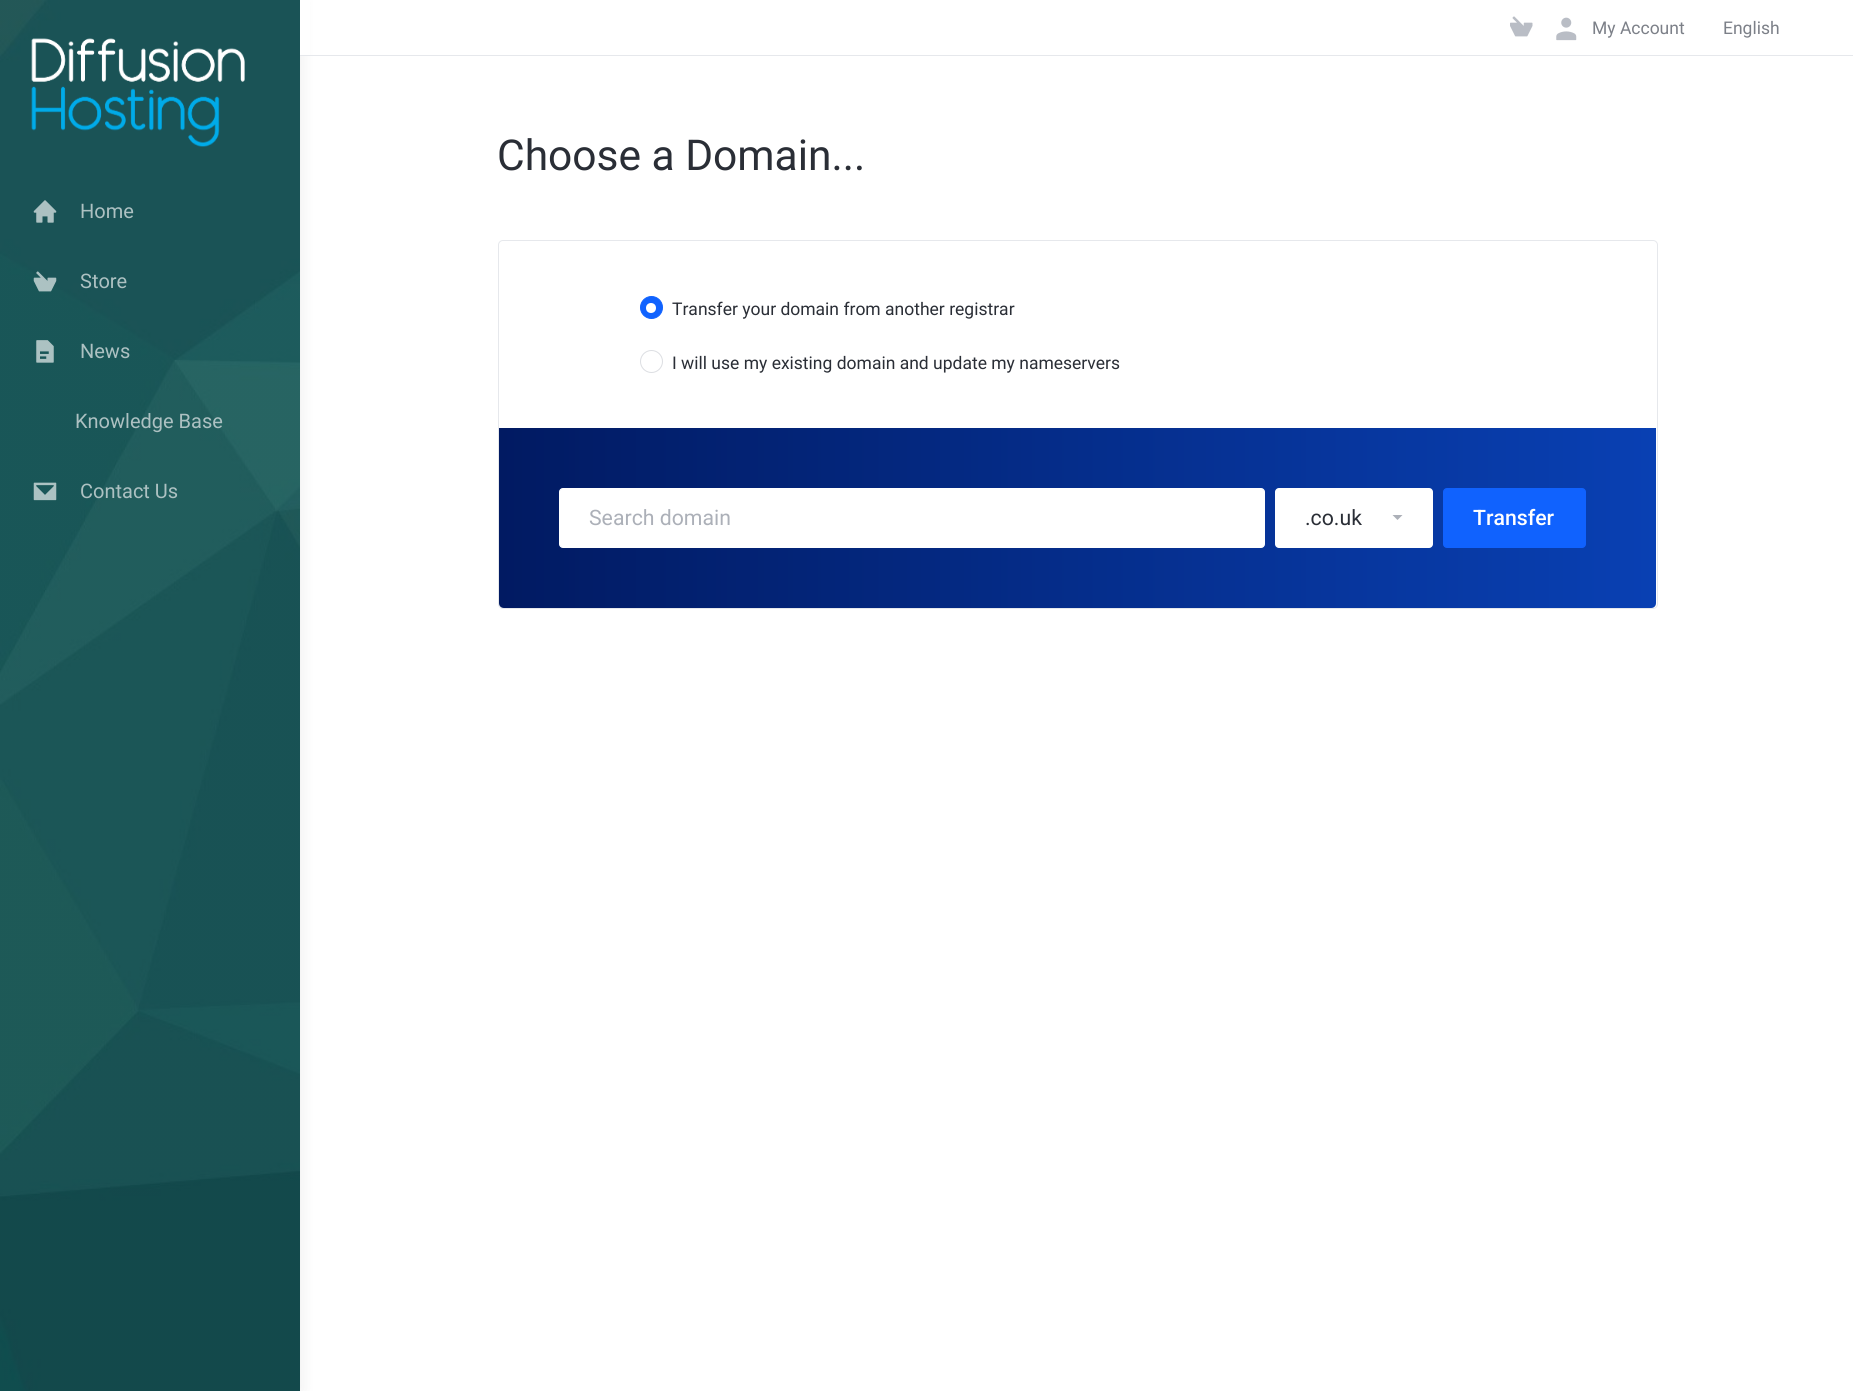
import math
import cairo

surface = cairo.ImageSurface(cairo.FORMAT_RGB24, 1853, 1391)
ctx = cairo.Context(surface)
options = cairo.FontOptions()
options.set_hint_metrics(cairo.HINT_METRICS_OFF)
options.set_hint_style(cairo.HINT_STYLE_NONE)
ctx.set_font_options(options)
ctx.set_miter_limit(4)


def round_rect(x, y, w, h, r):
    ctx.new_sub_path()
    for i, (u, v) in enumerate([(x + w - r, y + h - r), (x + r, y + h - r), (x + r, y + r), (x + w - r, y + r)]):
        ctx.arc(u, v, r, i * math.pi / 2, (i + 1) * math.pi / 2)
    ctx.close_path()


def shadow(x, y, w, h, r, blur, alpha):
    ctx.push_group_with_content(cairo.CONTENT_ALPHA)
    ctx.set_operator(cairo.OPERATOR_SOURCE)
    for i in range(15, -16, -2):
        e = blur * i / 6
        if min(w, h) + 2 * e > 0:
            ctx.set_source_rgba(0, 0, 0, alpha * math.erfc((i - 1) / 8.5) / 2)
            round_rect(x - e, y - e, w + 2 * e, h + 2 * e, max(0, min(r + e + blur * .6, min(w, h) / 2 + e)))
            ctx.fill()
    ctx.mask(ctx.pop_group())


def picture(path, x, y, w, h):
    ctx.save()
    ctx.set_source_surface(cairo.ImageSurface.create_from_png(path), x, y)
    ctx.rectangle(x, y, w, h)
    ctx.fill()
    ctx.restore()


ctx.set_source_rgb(1, 1, 1)
ctx.paint()
ctx.set_source_rgb(0, 0, 0)
shadow(0, 0, 300, 1391, 0, 9, 0.08)
picture("img1.png", 0, 0, 300, 1391)
picture("img2.png", 31, 38, 214, 109)
picture("img3.png", 33, 200, 24, 23)
ctx.select_font_face("Roboto")
ctx.set_font_size(20)
ctx.set_source_rgb(0.678, 0.757, 0.761)
ctx.move_to(80, 218)
ctx.show_text("Home")
picture("img4.png", 33, 271, 24, 21)
ctx.move_to(80, 288)
ctx.show_text("Store")
picture("img5.png", 36, 340, 18, 23)
ctx.move_to(80, 358)
ctx.show_text("News")
ctx.move_to(75, 428)
ctx.show_text("Knowledge Base")
picture("img6.png", 33, 482, 24, 19)
ctx.move_to(80, 498)
ctx.show_text("Contact Us")
ctx.set_source_rgb(1, 1, 1)
ctx.rectangle(300, 0, 10, 55)
ctx.fill()
ctx.set_source_rgb(0.902, 0.91, 0.925)
ctx.rectangle(300, 55, 1553, 1)
ctx.fill()
picture("img7.png", 1510, 16, 23, 21)
picture("img8.png", 1556, 17, 21, 24)
ctx.set_font_size(17.5)
ctx.set_source_rgb(0.486, 0.502, 0.533)
ctx.move_to(1592, 34)
ctx.show_text("My Account")
ctx.move_to(1723, 34)
ctx.show_text("English")
ctx.set_font_size(42.5)
ctx.set_source_rgb(0.165, 0.18, 0.212)
ctx.move_to(497, 170)
ctx.show_text("Choose a Domain...")
round_rect(498.5, 240.5, 1159, 368, 4.5)
ctx.set_source_rgb(0.902, 0.91, 0.925)
ctx.set_line_width(1)
ctx.stroke()
ctx.set_source_rgb(0.063, 0.384, 0.996)
ctx.arc(651.5, 307.5, 11, 0, 2 * math.pi)
ctx.fill_preserve()
ctx.stroke()
ctx.set_source_rgb(1, 1, 1)
ctx.arc(651, 308, 5, 0, 2 * math.pi)
ctx.fill()
ctx.set_font_size(17.5)
ctx.set_source_rgb(0.165, 0.18, 0.212)
ctx.move_to(672, 315)
ctx.show_text("Transfer your domain from another registrar")
ctx.new_path()
ctx.arc(651.5, 361.5, 11, 0, 2 * math.pi)
ctx.set_source_rgb(0.863, 0.871, 0.886)
ctx.stroke()
ctx.set_source_rgb(0.165, 0.18, 0.212)
ctx.move_to(672, 369)
ctx.show_text("I will use my existing domain and update my nameservers")
gradient = cairo.LinearGradient(499, 518, 1656, 518)
gradient.add_color_stop_rgba(0, 0.004, 0.102, 0.384, 1)
gradient.add_color_stop_rgba(1, 0.035, 0.251, 0.702, 1)
ctx.set_source(gradient)
ctx.new_path()
ctx.move_to(499, 428)
ctx.line_to(1656, 428)
ctx.line_to(1656, 603)
ctx.curve_to(1656, 606, 1654, 608, 1651, 608)
ctx.line_to(504, 608)
ctx.curve_to(501, 608, 499, 606, 499, 603)
ctx.close_path()
ctx.fill()
ctx.set_source_rgb(1, 1, 1)
round_rect(559.5, 488.5, 705, 59, 3.5)
ctx.fill_preserve()
ctx.stroke()
ctx.set_font_size(21.25)
ctx.set_source_rgb(0.675, 0.69, 0.722)
ctx.move_to(589, 525)
ctx.show_text("Search domain")
ctx.set_source_rgb(1, 1, 1)
round_rect(1275, 488, 158, 60, 4)
ctx.fill()
ctx.set_source_rgb(0.165, 0.18, 0.212)
ctx.move_to(1305, 525)
ctx.show_text(".co.uk")
ctx.set_source_rgb(0.675, 0.69, 0.722)
ctx.new_path()
ctx.move_to(1392.5, 515)
ctx.line_to(1402.5, 515)
ctx.line_to(1397.5, 520)
ctx.close_path()
ctx.fill()
ctx.set_source_rgb(0.063, 0.384, 0.996)
round_rect(1443.5, 488.5, 142, 59, 3.5)
ctx.fill_preserve()
ctx.stroke()
ctx.select_font_face("Roboto Medium")
ctx.set_source_rgb(1, 1, 1)
ctx.move_to(1473, 525)
ctx.show_text("Transfer")
surface.write_to_png("page.png")
